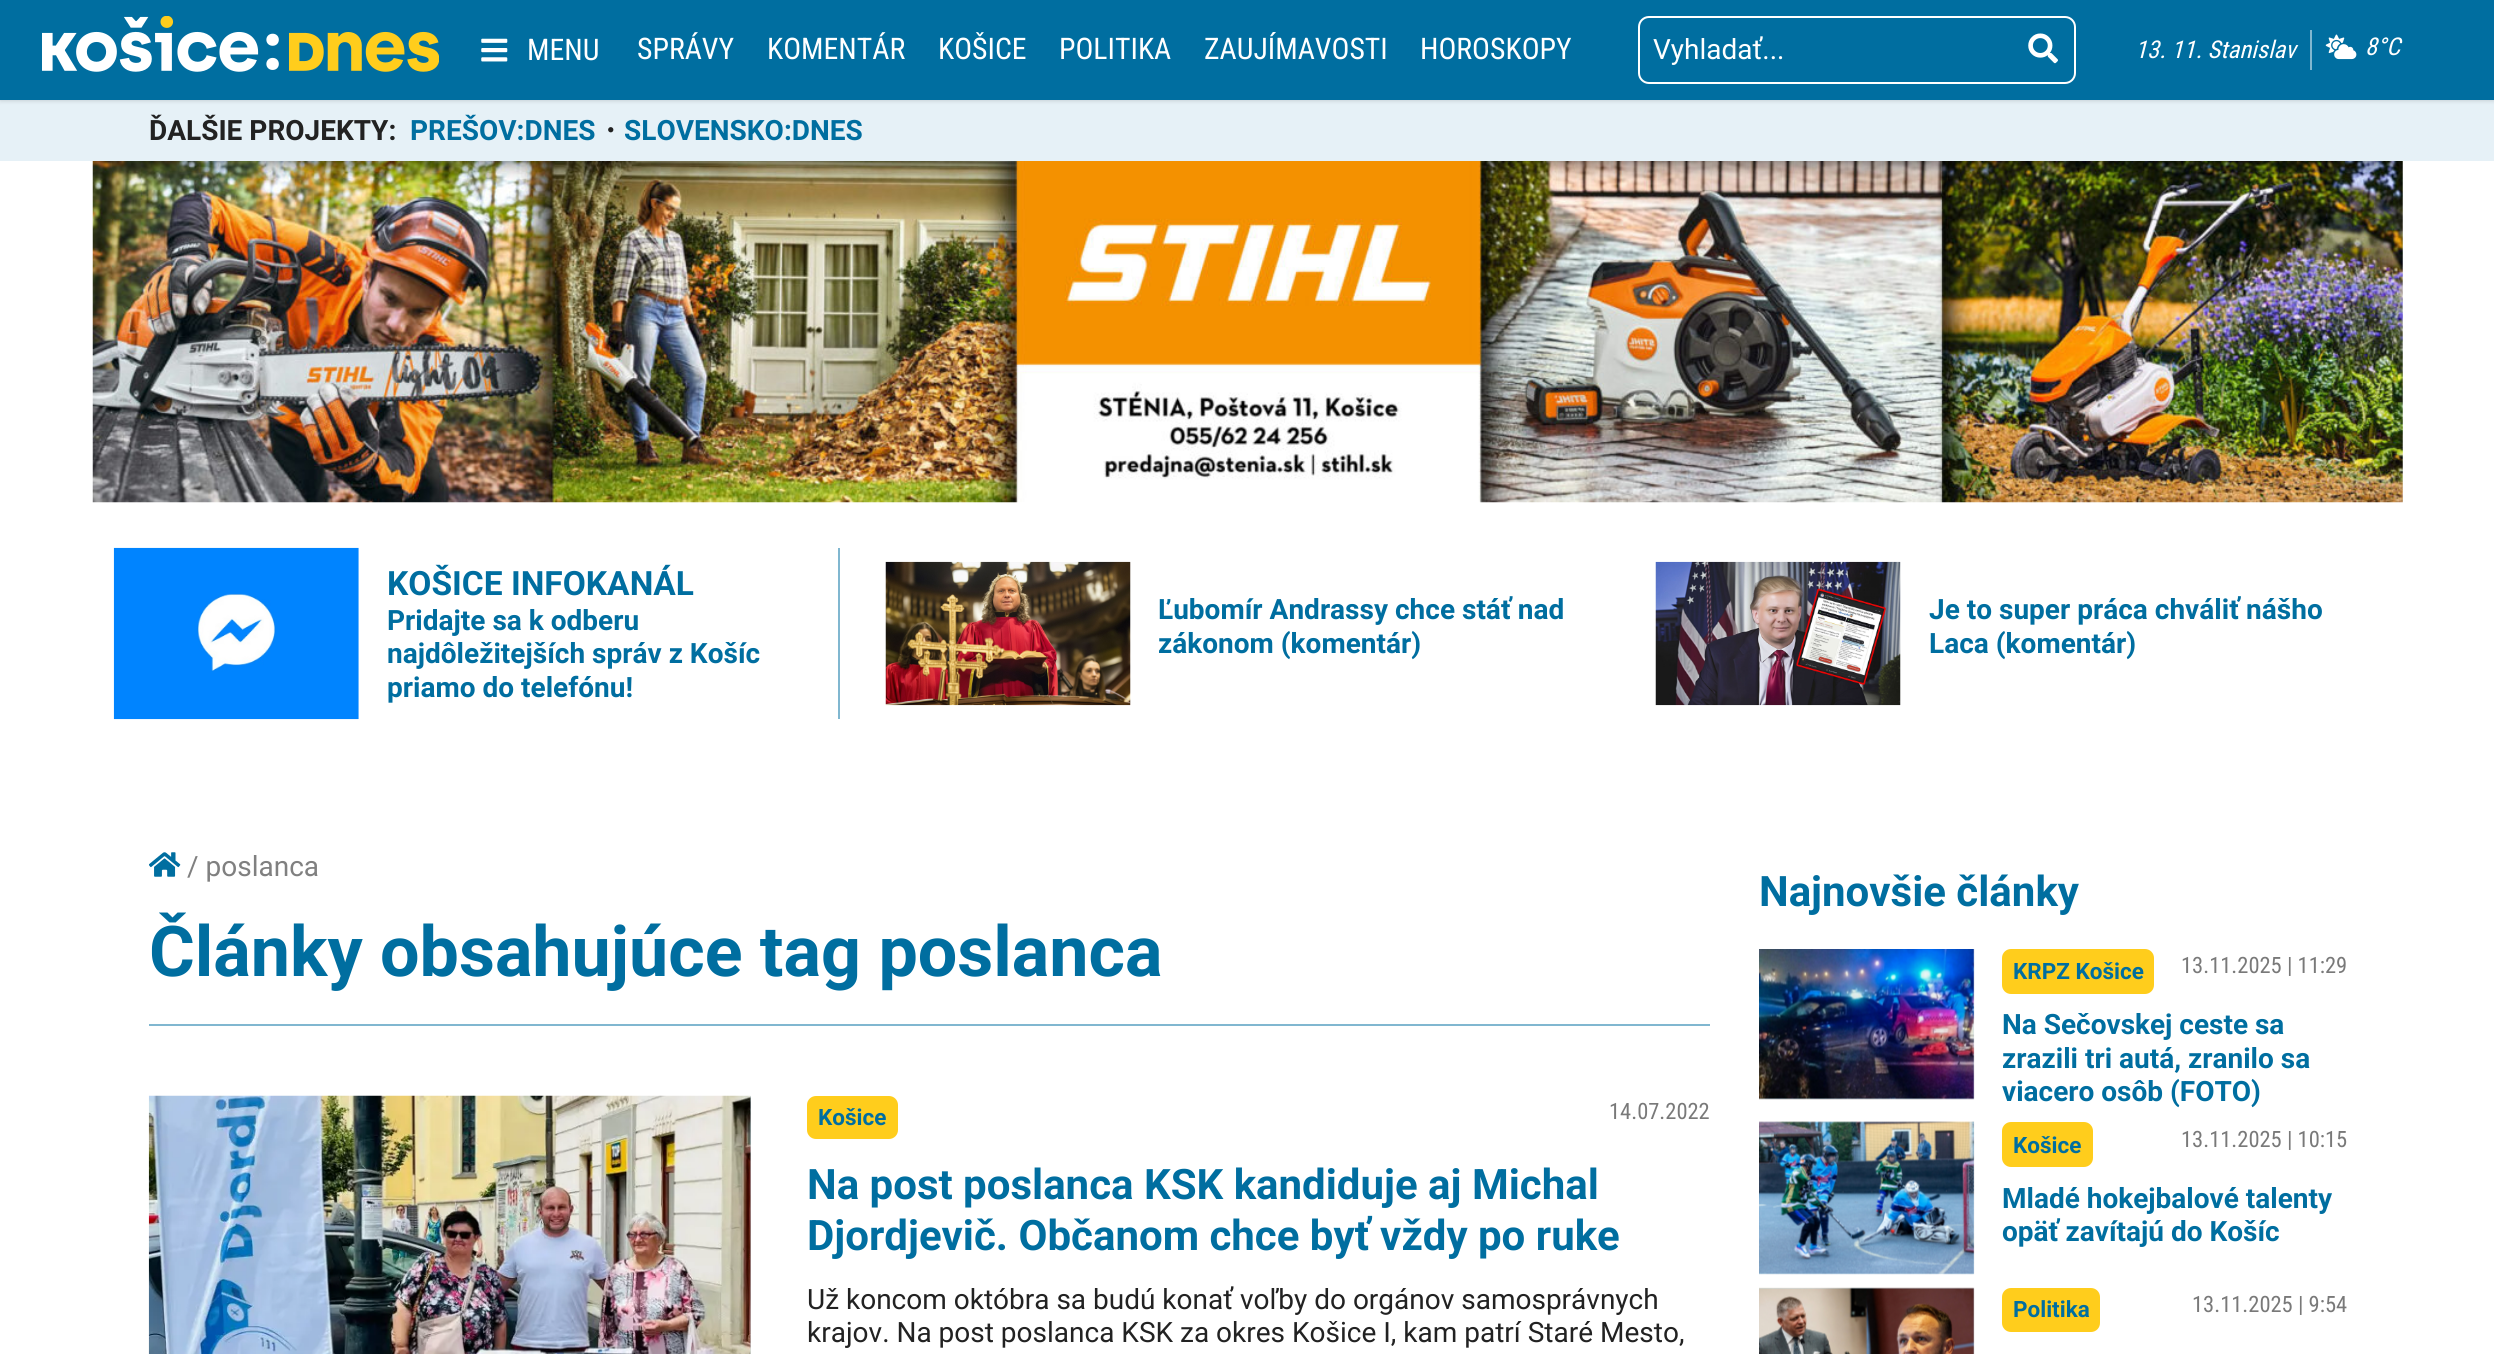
import math
import cairo

surface = cairo.ImageSurface(cairo.FORMAT_RGB24, 2494, 1354)
ctx = cairo.Context(surface)
options = cairo.FontOptions()
options.set_hint_metrics(cairo.HINT_METRICS_OFF)
options.set_hint_style(cairo.HINT_STYLE_NONE)
ctx.set_font_options(options)
ctx.set_miter_limit(4)


def round_rect(x, y, w, h, r):
    ctx.new_sub_path()
    for i, (u, v) in enumerate([(x + w - r, y + h - r), (x + r, y + h - r), (x + r, y + r), (x + w - r, y + r)]):
        ctx.arc(u, v, r, i * math.pi / 2, (i + 1) * math.pi / 2)
    ctx.close_path()


def shadow(x, y, w, h, r, blur, alpha):
    ctx.push_group_with_content(cairo.CONTENT_ALPHA)
    ctx.set_operator(cairo.OPERATOR_SOURCE)
    for i in range(15, -16, -2):
        e = blur * i / 6
        if min(w, h) + 2 * e > 0:
            ctx.set_source_rgba(0, 0, 0, alpha * math.erfc((i - 1) / 8.5) / 2)
            round_rect(x - e, y - e, w + 2 * e, h + 2 * e, max(0, min(r + e + blur * .6, min(w, h) / 2 + e)))
            ctx.fill()
    ctx.mask(ctx.pop_group())


def picture(path, x, y, w, h):
    ctx.save()
    ctx.set_source_surface(cairo.ImageSurface.create_from_png(path), x, y)
    ctx.rectangle(x, y, w, h)
    ctx.fill()
    ctx.restore()


ctx.set_source_rgb(1, 1, 1)
ctx.paint()
ctx.set_source_rgb(0.902, 0.945, 0.965)
ctx.rectangle(0, 100, 2494, 61)
ctx.fill()
ctx.set_source_rgb(0, 0, 0)
shadow(0, 0, 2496, 100, 0, 2.5, 0.2)
ctx.set_source_rgb(0, 0.431, 0.627)
ctx.rectangle(0, 0, 2494, 100)
ctx.fill()
picture("img1.png", 42, 16, 397, 56)
picture("img2.png", 481, 38, 27, 24)
ctx.select_font_face("Roboto Condensed")
ctx.set_font_size(29.75)
ctx.set_source_rgb(1, 1, 1)
ctx.move_to(527, 60)
ctx.show_text("MENU")
ctx.move_to(637, 59)
ctx.show_text("SPRÁVY")
ctx.move_to(767, 59)
ctx.show_text("KOMENTÁR")
ctx.move_to(938, 59)
ctx.show_text("KOŠICE")
ctx.move_to(1059, 59)
ctx.show_text("POLITIKA")
ctx.move_to(1204, 59)
ctx.show_text("ZAUJÍMAVOSTI")
ctx.move_to(1420, 59)
ctx.show_text("HOROSKOPY")
round_rect(1639, 17, 436, 66, 10)
ctx.stroke()
ctx.select_font_face("Roboto")
ctx.set_font_size(28)
ctx.move_to(1653, 59)
ctx.show_text("Vyhladať...")
picture("img3.png", 2028, 33, 30, 31)
ctx.set_source_rgb(0.502, 0.718, 0.816)
ctx.rectangle(2310, 30, 2, 40)
ctx.fill()
ctx.select_font_face("Roboto Condensed", cairo.FONT_SLANT_ITALIC)
ctx.set_font_size(24.5)
ctx.set_source_rgb(1, 1, 1)
ctx.move_to(2135, 58)
ctx.show_text("13. 11. Stanislav")
picture("img4.png", 2325, 34, 32, 26)
ctx.move_to(2365, 55)
ctx.show_text("8°C")
ctx.select_font_face("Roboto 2", cairo.FONT_SLANT_NORMAL, cairo.FONT_WEIGHT_BOLD)
ctx.set_font_size(28)
ctx.set_source_rgb(0.133, 0.133, 0.133)
ctx.move_to(149, 140)
ctx.show_text("ĎALŠIE PROJEKTY:")
ctx.set_source_rgb(0, 0.431, 0.627)
ctx.move_to(410, 140)
ctx.show_text("PREŠOV:DNES")
ctx.select_font_face("WenQuanYi Zen Hei", cairo.FONT_SLANT_NORMAL, cairo.FONT_WEIGHT_BOLD)
ctx.set_source_rgb(0.133, 0.133, 0.133)
ctx.move_to(596, 140)
ctx.show_text("・")
ctx.select_font_face("Roboto 2", cairo.FONT_SLANT_NORMAL, cairo.FONT_WEIGHT_BOLD)
ctx.set_source_rgb(0, 0.431, 0.627)
ctx.move_to(624, 140)
ctx.show_text("SLOVENSKO:DNES")
picture("img5.png", 92, 161, 2311, 342)
ctx.set_source_rgb(0.502, 0.718, 0.816)
ctx.rectangle(838, 548, 2, 171)
ctx.fill()
picture("img6.png", 113, 547, 246, 173)
ctx.select_font_face("Roboto", cairo.FONT_SLANT_NORMAL, cairo.FONT_WEIGHT_BOLD)
ctx.set_font_size(33.5)
ctx.set_source_rgb(0, 0.431, 0.627)
ctx.move_to(387, 595)
ctx.show_text("KOŠICE INFOKANÁL")
ctx.select_font_face("Roboto 2", cairo.FONT_SLANT_NORMAL, cairo.FONT_WEIGHT_BOLD)
ctx.set_font_size(28)
ctx.move_to(387, 630)
ctx.show_text("Pridajte sa k odberu")
ctx.move_to(387, 663)
ctx.show_text("najdôležitejších správ z Košíc")
ctx.move_to(387, 697)
ctx.show_text("priamo do telefónu!")
picture("img7.png", 885, 561, 246, 145)
ctx.move_to(1158, 619)
ctx.show_text("Ľubomír Andrassy chce stáť nad")
ctx.move_to(1158, 653)
ctx.show_text("zákonom (komentár)")
picture("img8.png", 1655, 561, 246, 145)
ctx.move_to(1929, 619)
ctx.show_text("Je to super práca chváliť nášho")
ctx.move_to(1929, 653)
ctx.show_text("Laca (komentár)")
picture("img9.png", 149, 852, 32, 25)
ctx.select_font_face("Roboto")
ctx.set_source_rgb(0.502, 0.502, 0.502)
ctx.move_to(187, 876)
ctx.show_text("/ poslanca")
ctx.set_source_rgb(0.502, 0.718, 0.816)
ctx.rectangle(149, 1024, 1561, 2)
ctx.fill()
ctx.select_font_face("Roboto", cairo.FONT_SLANT_NORMAL, cairo.FONT_WEIGHT_BOLD)
ctx.set_font_size(70)
ctx.set_source_rgb(0, 0.431, 0.627)
ctx.move_to(149, 976)
ctx.show_text("Články obsahujúce tag poslanca")
ctx.set_source_rgb(0.8, 0.886, 0.925)
ctx.rectangle(750, 1096, 1, 258)
ctx.fill()
picture("img10.png", 148, 1095, 603, 259)
ctx.set_source_rgb(1, 0.804, 0.11)
round_rect(807, 1096, 91, 43, 9)
ctx.fill()
ctx.set_font_size(22.5)
ctx.set_source_rgb(0, 0.431, 0.627)
ctx.move_to(818, 1125)
ctx.show_text("Košice")
ctx.select_font_face("Roboto Condensed")
ctx.set_source_rgb(0.475, 0.475, 0.475)
ctx.move_to(1609, 1119)
ctx.show_text("14.07.2022")
ctx.select_font_face("Roboto", cairo.FONT_SLANT_NORMAL, cairo.FONT_WEIGHT_BOLD)
ctx.set_font_size(42)
ctx.set_source_rgb(0, 0.431, 0.627)
ctx.move_to(807, 1199)
ctx.show_text("Na post poslanca KSK kandiduje aj Michal")
ctx.move_to(807, 1250)
ctx.show_text("Djordjevič. Občanom chce byť vždy po ruke")
ctx.select_font_face("Roboto")
ctx.set_font_size(28)
ctx.set_source_rgb(0.133, 0.133, 0.133)
ctx.move_to(807, 1309)
ctx.show_text("Už koncom októbra sa budú konať voľby do orgánov samosprávnych")
ctx.move_to(807, 1342)
ctx.show_text("krajov. Na post poslanca KSK za okres Košice I, kam patrí Staré Mesto,")
ctx.select_font_face("Roboto", cairo.FONT_SLANT_NORMAL, cairo.FONT_WEIGHT_BOLD)
ctx.set_font_size(42)
ctx.set_source_rgb(0, 0.431, 0.627)
ctx.move_to(1759, 906)
ctx.show_text("Najnovšie články")
ctx.set_source_rgb(0.8, 0.886, 0.925)
ctx.rectangle(1759, 949, 215, 150)
ctx.fill()
picture("img11.png", 1759, 949, 216, 151)
ctx.set_source_rgb(1, 0.804, 0.11)
round_rect(2002, 949, 152, 45, 9)
ctx.fill()
ctx.set_font_size(22.5)
ctx.set_source_rgb(0, 0.431, 0.627)
ctx.move_to(2013, 979)
ctx.show_text("KRPZ Košice")
ctx.select_font_face("Roboto Condensed")
ctx.set_source_rgb(0.475, 0.475, 0.475)
ctx.move_to(2181, 973)
ctx.show_text("13.11.2025 | 11:29")
ctx.select_font_face("Roboto", cairo.FONT_SLANT_NORMAL, cairo.FONT_WEIGHT_BOLD)
ctx.set_font_size(28)
ctx.set_source_rgb(0, 0.431, 0.627)
ctx.move_to(2002, 1034)
ctx.show_text("Na Sečovskej ceste sa")
ctx.move_to(2002, 1068)
ctx.show_text("zrazili tri autá, zranilo sa")
ctx.move_to(2002, 1101)
ctx.show_text("viacero osôb (FOTO)")
ctx.set_source_rgb(0.8, 0.886, 0.925)
ctx.rectangle(1759, 1122, 215, 152)
ctx.fill()
picture("img12.png", 1759, 1121, 216, 154)
ctx.set_source_rgb(1, 0.804, 0.11)
round_rect(2002, 1122, 91, 45, 9)
ctx.fill()
ctx.set_font_size(22.5)
ctx.set_source_rgb(0, 0.431, 0.627)
ctx.move_to(2013, 1153)
ctx.show_text("Košice")
ctx.select_font_face("Roboto Condensed")
ctx.set_source_rgb(0.475, 0.475, 0.475)
ctx.move_to(2181, 1147)
ctx.show_text("13.11.2025 | 10:15")
ctx.select_font_face("Roboto", cairo.FONT_SLANT_NORMAL, cairo.FONT_WEIGHT_BOLD)
ctx.set_font_size(28)
ctx.set_source_rgb(0, 0.431, 0.627)
ctx.move_to(2002, 1208)
ctx.show_text("Mladé hokejbalové talenty")
ctx.move_to(2002, 1241)
ctx.show_text("opäť zavítajú do Košíc")
ctx.set_source_rgb(0.8, 0.886, 0.925)
ctx.rectangle(1759, 1288, 215, 66)
ctx.fill()
picture("img13.png", 1759, 1287, 216, 67)
ctx.set_source_rgb(1, 0.804, 0.11)
round_rect(2002, 1288, 98, 44, 9)
ctx.fill()
ctx.set_font_size(22.5)
ctx.set_source_rgb(0, 0.431, 0.627)
ctx.move_to(2013, 1317)
ctx.show_text("Politika")
ctx.select_font_face("Roboto Condensed")
ctx.set_source_rgb(0.475, 0.475, 0.475)
ctx.move_to(2192, 1312)
ctx.show_text("13.11.2025 | 9:54")
surface.write_to_png("page.png")
